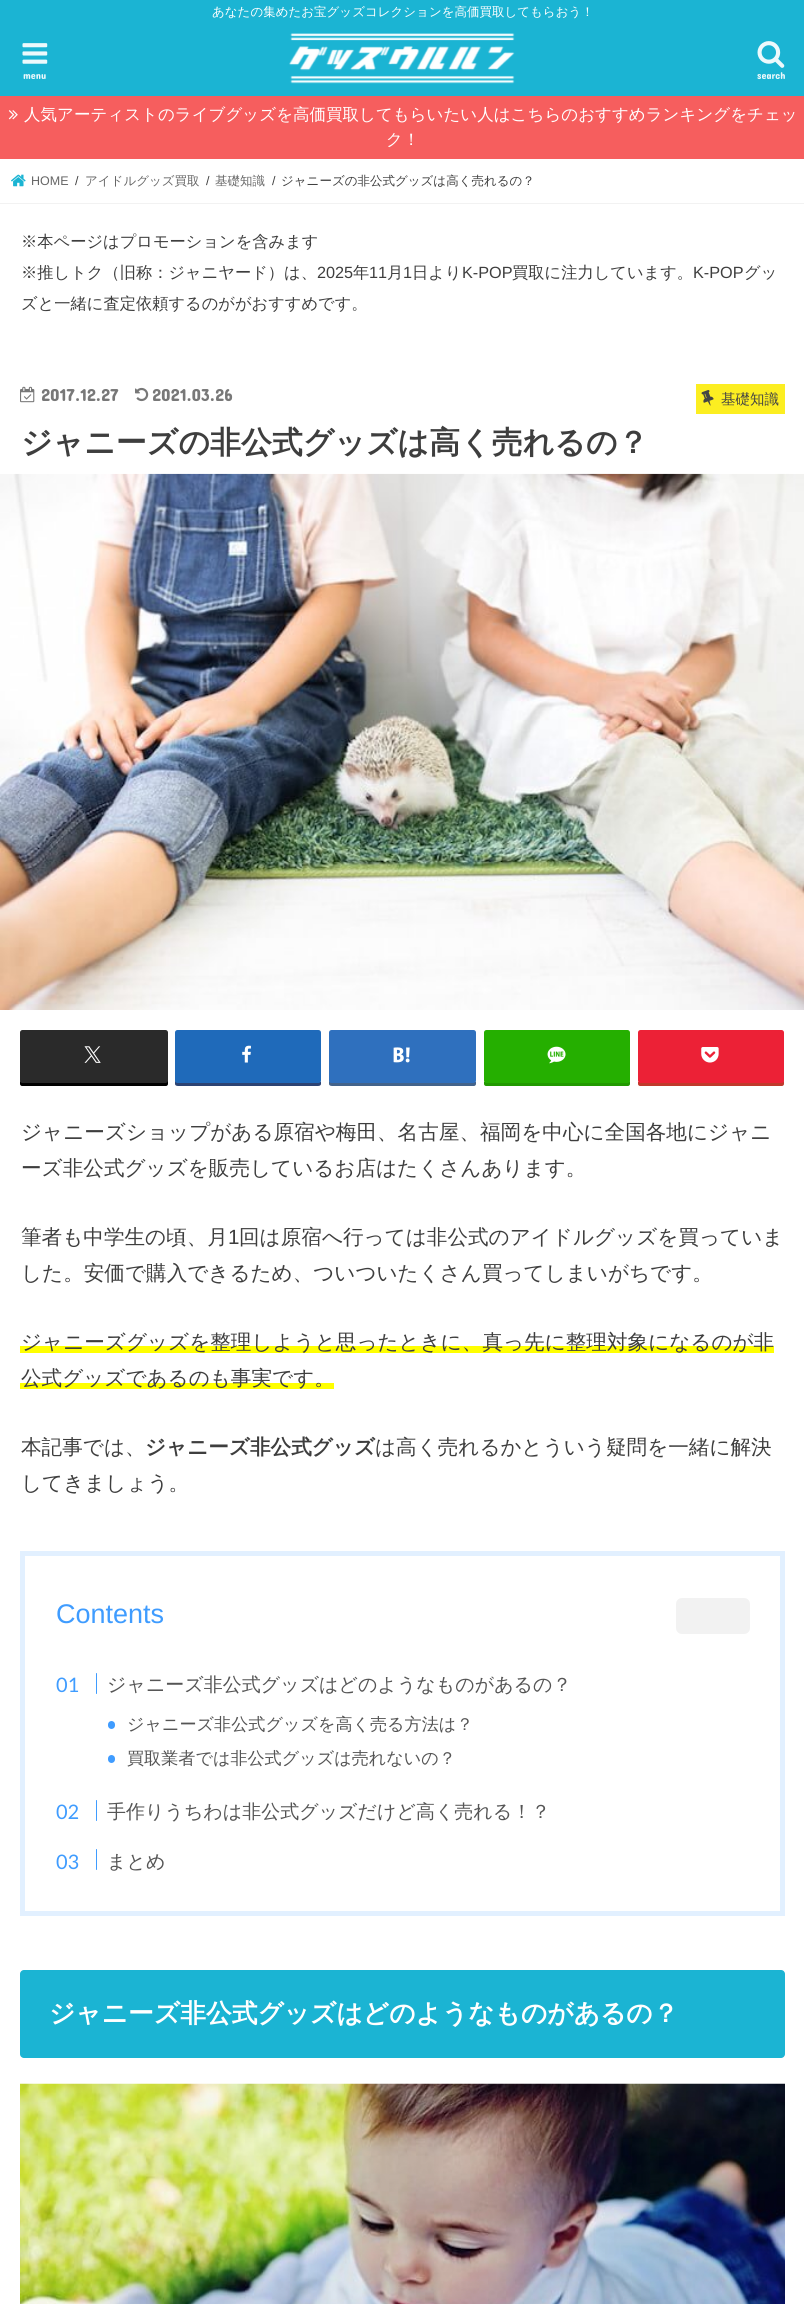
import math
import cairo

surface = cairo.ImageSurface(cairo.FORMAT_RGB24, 804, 2304)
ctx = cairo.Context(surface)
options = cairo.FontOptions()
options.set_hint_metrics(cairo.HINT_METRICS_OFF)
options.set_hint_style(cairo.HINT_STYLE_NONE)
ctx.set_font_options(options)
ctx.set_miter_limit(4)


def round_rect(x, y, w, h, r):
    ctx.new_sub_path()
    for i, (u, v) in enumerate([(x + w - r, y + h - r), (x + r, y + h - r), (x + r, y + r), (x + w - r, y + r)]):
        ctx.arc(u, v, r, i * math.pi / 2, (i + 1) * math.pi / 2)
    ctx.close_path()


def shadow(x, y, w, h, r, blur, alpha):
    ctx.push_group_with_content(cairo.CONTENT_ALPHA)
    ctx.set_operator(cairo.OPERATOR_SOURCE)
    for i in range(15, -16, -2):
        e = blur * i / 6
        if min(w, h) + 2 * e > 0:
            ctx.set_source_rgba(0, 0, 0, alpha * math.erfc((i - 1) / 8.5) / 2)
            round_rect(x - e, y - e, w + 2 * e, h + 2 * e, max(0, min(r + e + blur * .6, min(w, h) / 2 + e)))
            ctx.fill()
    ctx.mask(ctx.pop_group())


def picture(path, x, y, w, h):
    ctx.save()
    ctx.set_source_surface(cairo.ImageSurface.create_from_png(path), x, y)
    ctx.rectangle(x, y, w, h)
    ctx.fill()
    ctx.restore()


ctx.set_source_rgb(0.106, 0.706, 0.827)
ctx.paint()
ctx.select_font_face("WenQuanYi Zen Hei Medium")
ctx.set_font_size(12.5)
ctx.set_source_rgb(1, 1, 1)
ctx.move_to(212, 16)
ctx.show_text("あなたの集めたお宝グッズコレクションを高価買取してもらおう！")
picture("img1.png", 22, 43, 26, 21)
ctx.select_font_face("Concert One")
ctx.set_font_size(10)
ctx.set_source_rgb(0.929, 0.976, 0.988)
ctx.move_to(23, 79)
ctx.show_text("menu")
picture("img2.png", 289, 33, 226, 51)
picture("img3.png", 757, 41, 28, 27)
ctx.move_to(757, 79)
ctx.show_text("search")
ctx.set_source_rgb(0.961, 0.369, 0.369)
ctx.rectangle(0, 96, 804, 63)
ctx.fill()
picture("img4.png", 8, 110, 10, 10)
ctx.select_font_face("WenQuanYi Zen Hei Medium")
ctx.set_font_size(16.5)
ctx.set_source_rgb(1, 1, 1)
ctx.move_to(24, 120)
ctx.show_text("人気アーティストのライブグッズを高価買取してもらいたい人はこちらのおすすめランキングをチェッ")
ctx.move_to(386, 145)
ctx.show_text("ク！")
ctx.rectangle(0, 159, 804, 44)
ctx.fill()
ctx.set_source_rgb(0.969, 0.969, 0.969)
ctx.rectangle(0, 203, 804, 1)
ctx.fill()
picture("img5.png", 11, 174, 15, 13)
ctx.select_font_face("Liberation Sans")
ctx.set_font_size(12.5)
ctx.set_source_rgb(0.4, 0.4, 0.4)
ctx.move_to(31, 185)
ctx.show_text("HOME")
ctx.set_source_rgb(0.243, 0.243, 0.243)
ctx.move_to(75, 185)
ctx.show_text("/")
ctx.select_font_face("WenQuanYi Zen Hei Medium")
ctx.set_source_rgb(0.4, 0.4, 0.4)
ctx.move_to(85, 185)
ctx.show_text("アイドルグッズ買取")
ctx.select_font_face("Liberation Sans")
ctx.set_source_rgb(0.243, 0.243, 0.243)
ctx.move_to(206, 185)
ctx.show_text("/")
ctx.select_font_face("WenQuanYi Zen Hei Medium")
ctx.set_source_rgb(0.4, 0.4, 0.4)
ctx.move_to(215, 185)
ctx.show_text("基礎知識")
ctx.select_font_face("Liberation Sans")
ctx.set_source_rgb(0.243, 0.243, 0.243)
ctx.move_to(272, 185)
ctx.show_text("/")
ctx.select_font_face("WenQuanYi Zen Hei Medium")
ctx.move_to(281, 185)
ctx.show_text("ジャニーズの非公式グッズは高く売れるの？")
ctx.set_source_rgb(0.867, 0.867, 0.867)
shadow(0, 204, 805, 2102, 0, 0.5, 1)
ctx.set_source_rgb(1, 1, 1)
ctx.rectangle(0, 204, 804, 2100)
ctx.fill()
ctx.set_font_size(16.25)
ctx.set_source_rgb(0.243, 0.243, 0.243)
ctx.move_to(21, 247)
ctx.show_text("※本ページはプロモーションを含みます")
ctx.move_to(21, 278)
ctx.show_text("※推しトク（旧称：ジャニヤード）は、")
ctx.select_font_face("Liberation Sans")
ctx.move_to(317, 278)
ctx.show_text("2025")
ctx.select_font_face("WenQuanYi Zen Hei Medium")
ctx.move_to(353, 278)
ctx.show_text("年")
ctx.select_font_face("Liberation Sans")
ctx.move_to(369, 278)
ctx.show_text("11")
ctx.select_font_face("WenQuanYi Zen Hei Medium")
ctx.move_to(387, 278)
ctx.show_text("月")
ctx.select_font_face("Liberation Sans")
ctx.move_to(403, 278)
ctx.show_text("1")
ctx.select_font_face("WenQuanYi Zen Hei Medium")
ctx.move_to(412, 278)
ctx.show_text("日より")
ctx.select_font_face("Liberation Sans")
ctx.move_to(462, 278)
ctx.show_text("K-POP")
ctx.select_font_face("WenQuanYi Zen Hei Medium")
ctx.move_to(512, 278)
ctx.show_text("買取に注力しています。")
ctx.select_font_face("Liberation Sans")
ctx.move_to(693, 278)
ctx.show_text("K-POP")
ctx.select_font_face("WenQuanYi Zen Hei Medium")
ctx.move_to(744, 278)
ctx.show_text("グッ")
ctx.move_to(21, 309)
ctx.show_text("ズと一緒に査定依頼するのががおすすめです。")
picture("img6.png", 20, 386, 15, 17)
ctx.select_font_face("Concert One")
ctx.set_font_size(17.5)
ctx.set_source_rgb(0.471, 0.471, 0.471)
ctx.move_to(41, 401)
ctx.show_text("2017.12.27")
picture("img7.png", 135, 387, 14, 15)
ctx.move_to(152, 401)
ctx.show_text("2021.03.26")
ctx.set_source_rgb(0.988, 0.933, 0.129)
ctx.rectangle(696, 384, 89, 30)
ctx.fill()
picture("img8.png", 701, 390, 13, 16)
ctx.select_font_face("WenQuanYi Zen Hei Medium")
ctx.set_font_size(14.5)
ctx.set_source_rgb(0.267, 0.267, 0.267)
ctx.move_to(721, 404)
ctx.show_text("基礎知識")
ctx.select_font_face("WenQuanYi Zen Hei", cairo.FONT_SLANT_NORMAL, cairo.FONT_WEIGHT_BOLD)
ctx.set_font_size(30.9)
ctx.set_source_rgb(0.243, 0.243, 0.243)
ctx.move_to(21, 453)
ctx.show_text("ジャニーズの非公式グッズは高く売れるの？")
picture("img9.png", 0, 473, 804, 537)
ctx.set_source_rgb(0, 0, 0)
ctx.new_path()
ctx.move_to(20, 1080)
ctx.line_to(20, 1084)
ctx.curve_to(20, 1085, 21, 1086, 22, 1086)
ctx.line_to(166, 1086)
ctx.curve_to(167, 1086, 168, 1085, 168, 1084)
ctx.line_to(168, 1036)
ctx.line_to(168, 1035)
ctx.line_to(168, 1080)
ctx.curve_to(168, 1081, 166, 1082, 165, 1082)
ctx.line_to(22, 1082)
ctx.curve_to(21, 1082, 20, 1081, 20, 1080)
ctx.close_path()
ctx.fill()
ctx.set_source_rgb(0.165, 0.165, 0.165)
round_rect(20, 1030, 148, 53, 2.5)
ctx.fill()
picture("img10.png", 84, 1046, 17, 17)
ctx.set_source_rgb(0.173, 0.263, 0.451)
ctx.new_path()
ctx.move_to(175, 1080)
ctx.line_to(175, 1084)
ctx.curve_to(175, 1085, 176, 1086, 178, 1086)
ctx.line_to(318, 1086)
ctx.curve_to(320, 1086, 321, 1085, 321, 1084)
ctx.line_to(321, 1081)
ctx.curve_to(321, 1082, 320, 1082, 319, 1082)
ctx.line_to(178, 1082)
ctx.curve_to(176, 1082, 175, 1081, 175, 1080)
ctx.close_path()
ctx.fill()
ctx.set_source_rgb(0.122, 0.416, 0.729)
round_rect(175, 1030, 146, 53, 2.5)
ctx.fill()
picture("img11.png", 242, 1045, 9, 18)
ctx.set_source_rgb(0.263, 0.388, 0.545)
ctx.new_path()
ctx.move_to(329, 1081)
ctx.line_to(329, 1084)
ctx.curve_to(329, 1085, 330, 1086, 332, 1086)
ctx.line_to(474, 1086)
ctx.curve_to(475, 1086, 476, 1085, 476, 1084)
ctx.line_to(476, 1081)
ctx.curve_to(476, 1082, 475, 1082, 474, 1082)
ctx.line_to(331, 1082)
ctx.close_path()
ctx.fill()
ctx.set_source_rgb(0.184, 0.439, 0.745)
round_rect(329, 1030, 147, 53, 2.5)
ctx.fill()
picture("img12.png", 393, 1047, 17, 16)
ctx.set_source_rgb(0.129, 0.6, 0)
ctx.new_path()
ctx.move_to(484, 1081)
ctx.line_to(484, 1084)
ctx.curve_to(484, 1085, 485, 1086, 486, 1086)
ctx.line_to(628, 1086)
ctx.curve_to(629, 1086, 630, 1085, 630, 1084)
ctx.line_to(630, 1080)
ctx.curve_to(630, 1081, 629, 1082, 628, 1082)
ctx.line_to(486, 1082)
ctx.curve_to(485, 1082, 484, 1082, 484, 1081)
ctx.close_path()
ctx.fill()
ctx.set_source_rgb(0.145, 0.686, 0)
round_rect(484, 1030, 146, 53, 2.5)
ctx.fill()
picture("img13.png", 547, 1046, 19, 18)
ctx.set_source_rgb(0.753, 0.224, 0.169)
ctx.new_path()
ctx.move_to(638, 1082)
ctx.line_to(638, 1084)
ctx.curve_to(638, 1085, 639, 1086, 640, 1086)
ctx.line_to(782, 1086)
ctx.curve_to(783, 1086, 784, 1085, 784, 1084)
ctx.line_to(784, 1035)
ctx.line_to(784, 1080)
ctx.curve_to(784, 1081, 783, 1082, 781, 1082)
ctx.line_to(640, 1082)
ctx.curve_to(639, 1082, 638, 1082, 638, 1082)
ctx.close_path()
ctx.fill()
ctx.set_source_rgb(0.925, 0.129, 0.212)
round_rect(638, 1030, 146, 53, 2.5)
ctx.fill()
picture("img14.png", 701, 1047, 18, 16)
ctx.select_font_face("WenQuanYi Zen Hei Medium")
ctx.set_font_size(20.6)
ctx.set_source_rgb(0.243, 0.243, 0.243)
ctx.move_to(21, 1139)
ctx.show_text("ジャニーズショップがある原宿や梅田、名古屋、福岡を中心に全国各地にジャニ")
ctx.move_to(21, 1175)
ctx.show_text("ーズ非公式グッズを販売しているお店はたくさんあります。")
ctx.move_to(21, 1244)
ctx.show_text("筆者も中学生の頃、月")
ctx.select_font_face("Liberation Sans")
ctx.move_to(228, 1244)
ctx.show_text("1")
ctx.select_font_face("WenQuanYi Zen Hei Medium")
ctx.move_to(239, 1244)
ctx.show_text("回は原宿へ行っては非公式のアイドルグッズを買っていま")
ctx.move_to(21, 1280)
ctx.show_text("した。安価で購入できるため、ついついたくさん買ってしまいがちです。")
ctx.set_source_rgb(1, 1, 0)
ctx.rectangle(20, 1346, 754, 7)
ctx.fill()
ctx.set_source_rgb(0.243, 0.243, 0.243)
ctx.move_to(21, 1349)
ctx.show_text("ジャニーズグッズを整理しようと思ったときに、真っ先に整理対象になるのが非")
ctx.set_source_rgb(1, 1, 0)
ctx.rectangle(20, 1383, 314, 6)
ctx.fill()
ctx.set_source_rgb(0.243, 0.243, 0.243)
ctx.move_to(21, 1385)
ctx.show_text("公式グッズであるのも事実です。")
ctx.move_to(21, 1454)
ctx.show_text("本記事では、")
ctx.select_font_face("WenQuanYi Zen Hei", cairo.FONT_SLANT_NORMAL, cairo.FONT_WEIGHT_BOLD)
ctx.move_to(145, 1454)
ctx.show_text("ジャニーズ非公式グッズ")
ctx.select_font_face("WenQuanYi Zen Hei Medium")
ctx.move_to(375, 1454)
ctx.show_text("は高く売れるかとういう疑問を一緒に解決")
ctx.move_to(21, 1490)
ctx.show_text("してきましょう。")
ctx.rectangle(22.5, 1553.5, 760, 360)
ctx.set_source_rgb(0.886, 0.941, 1)
ctx.set_line_width(5)
ctx.stroke()
ctx.select_font_face("Liberation Sans")
ctx.set_font_size(27)
ctx.set_source_rgb(0.247, 0.612, 1)
ctx.move_to(56, 1623)
ctx.show_text("Contents")
ctx.set_source_rgb(0.949, 0.949, 0.949)
round_rect(676, 1598, 74, 36, 6)
ctx.fill()
ctx.select_font_face("Lato")
ctx.set_font_size(20)
ctx.set_source_rgb(0.247, 0.612, 1)
ctx.move_to(56, 1692)
ctx.show_text("01")
round_rect(96, 1673, 1, 21, 0.5)
ctx.fill()
ctx.select_font_face("WenQuanYi Zen Hei Medium")
ctx.set_font_size(19)
ctx.set_source_rgb(0.333, 0.333, 0.333)
ctx.move_to(107, 1691)
ctx.show_text("ジャニーズ非公式グッズはどのようなものがあるの？")
ctx.set_source_rgb(0.247, 0.612, 1)
round_rect(108, 1721, 7, 8, 3.5)
ctx.fill()
ctx.set_font_size(17.1)
ctx.set_source_rgb(0.333, 0.333, 0.333)
ctx.move_to(127, 1730)
ctx.show_text("ジャニーズ非公式グッズを高く売る方法は？")
ctx.set_source_rgb(0.247, 0.612, 1)
round_rect(108, 1755, 7, 8, 3.5)
ctx.fill()
ctx.set_source_rgb(0.333, 0.333, 0.333)
ctx.move_to(127, 1764)
ctx.show_text("買取業者では非公式グッズは売れないの？")
ctx.select_font_face("Lato")
ctx.set_font_size(20)
ctx.set_source_rgb(0.247, 0.612, 1)
ctx.move_to(56, 1819)
ctx.show_text("02")
round_rect(96, 1800, 1, 21, 0.5)
ctx.fill()
ctx.select_font_face("WenQuanYi Zen Hei Medium")
ctx.set_font_size(19)
ctx.set_source_rgb(0.333, 0.333, 0.333)
ctx.move_to(107, 1818)
ctx.show_text("手作りうちわは非公式グッズだけど高く売れる！？")
ctx.select_font_face("Lato")
ctx.set_font_size(20)
ctx.set_source_rgb(0.247, 0.612, 1)
ctx.move_to(56, 1869)
ctx.show_text("03")
round_rect(96, 1849, 1, 21, 0.5)
ctx.fill()
ctx.select_font_face("WenQuanYi Zen Hei Medium")
ctx.set_font_size(19)
ctx.set_source_rgb(0.333, 0.333, 0.333)
ctx.move_to(107, 1868)
ctx.show_text("まとめ")
ctx.set_source_rgb(0.106, 0.706, 0.827)
round_rect(20, 1970, 765, 88, 4)
ctx.fill()
ctx.select_font_face("WenQuanYi Zen Hei", cairo.FONT_SLANT_NORMAL, cairo.FONT_WEIGHT_BOLD)
ctx.set_font_size(25.75)
ctx.set_source_rgb(1, 1, 1)
ctx.move_to(49, 2022)
ctx.show_text("ジャニーズ非公式グッズはどのようなものがあるの？")
picture("img15.png", 20, 2083, 765, 221)
surface.write_to_png("page.png")
